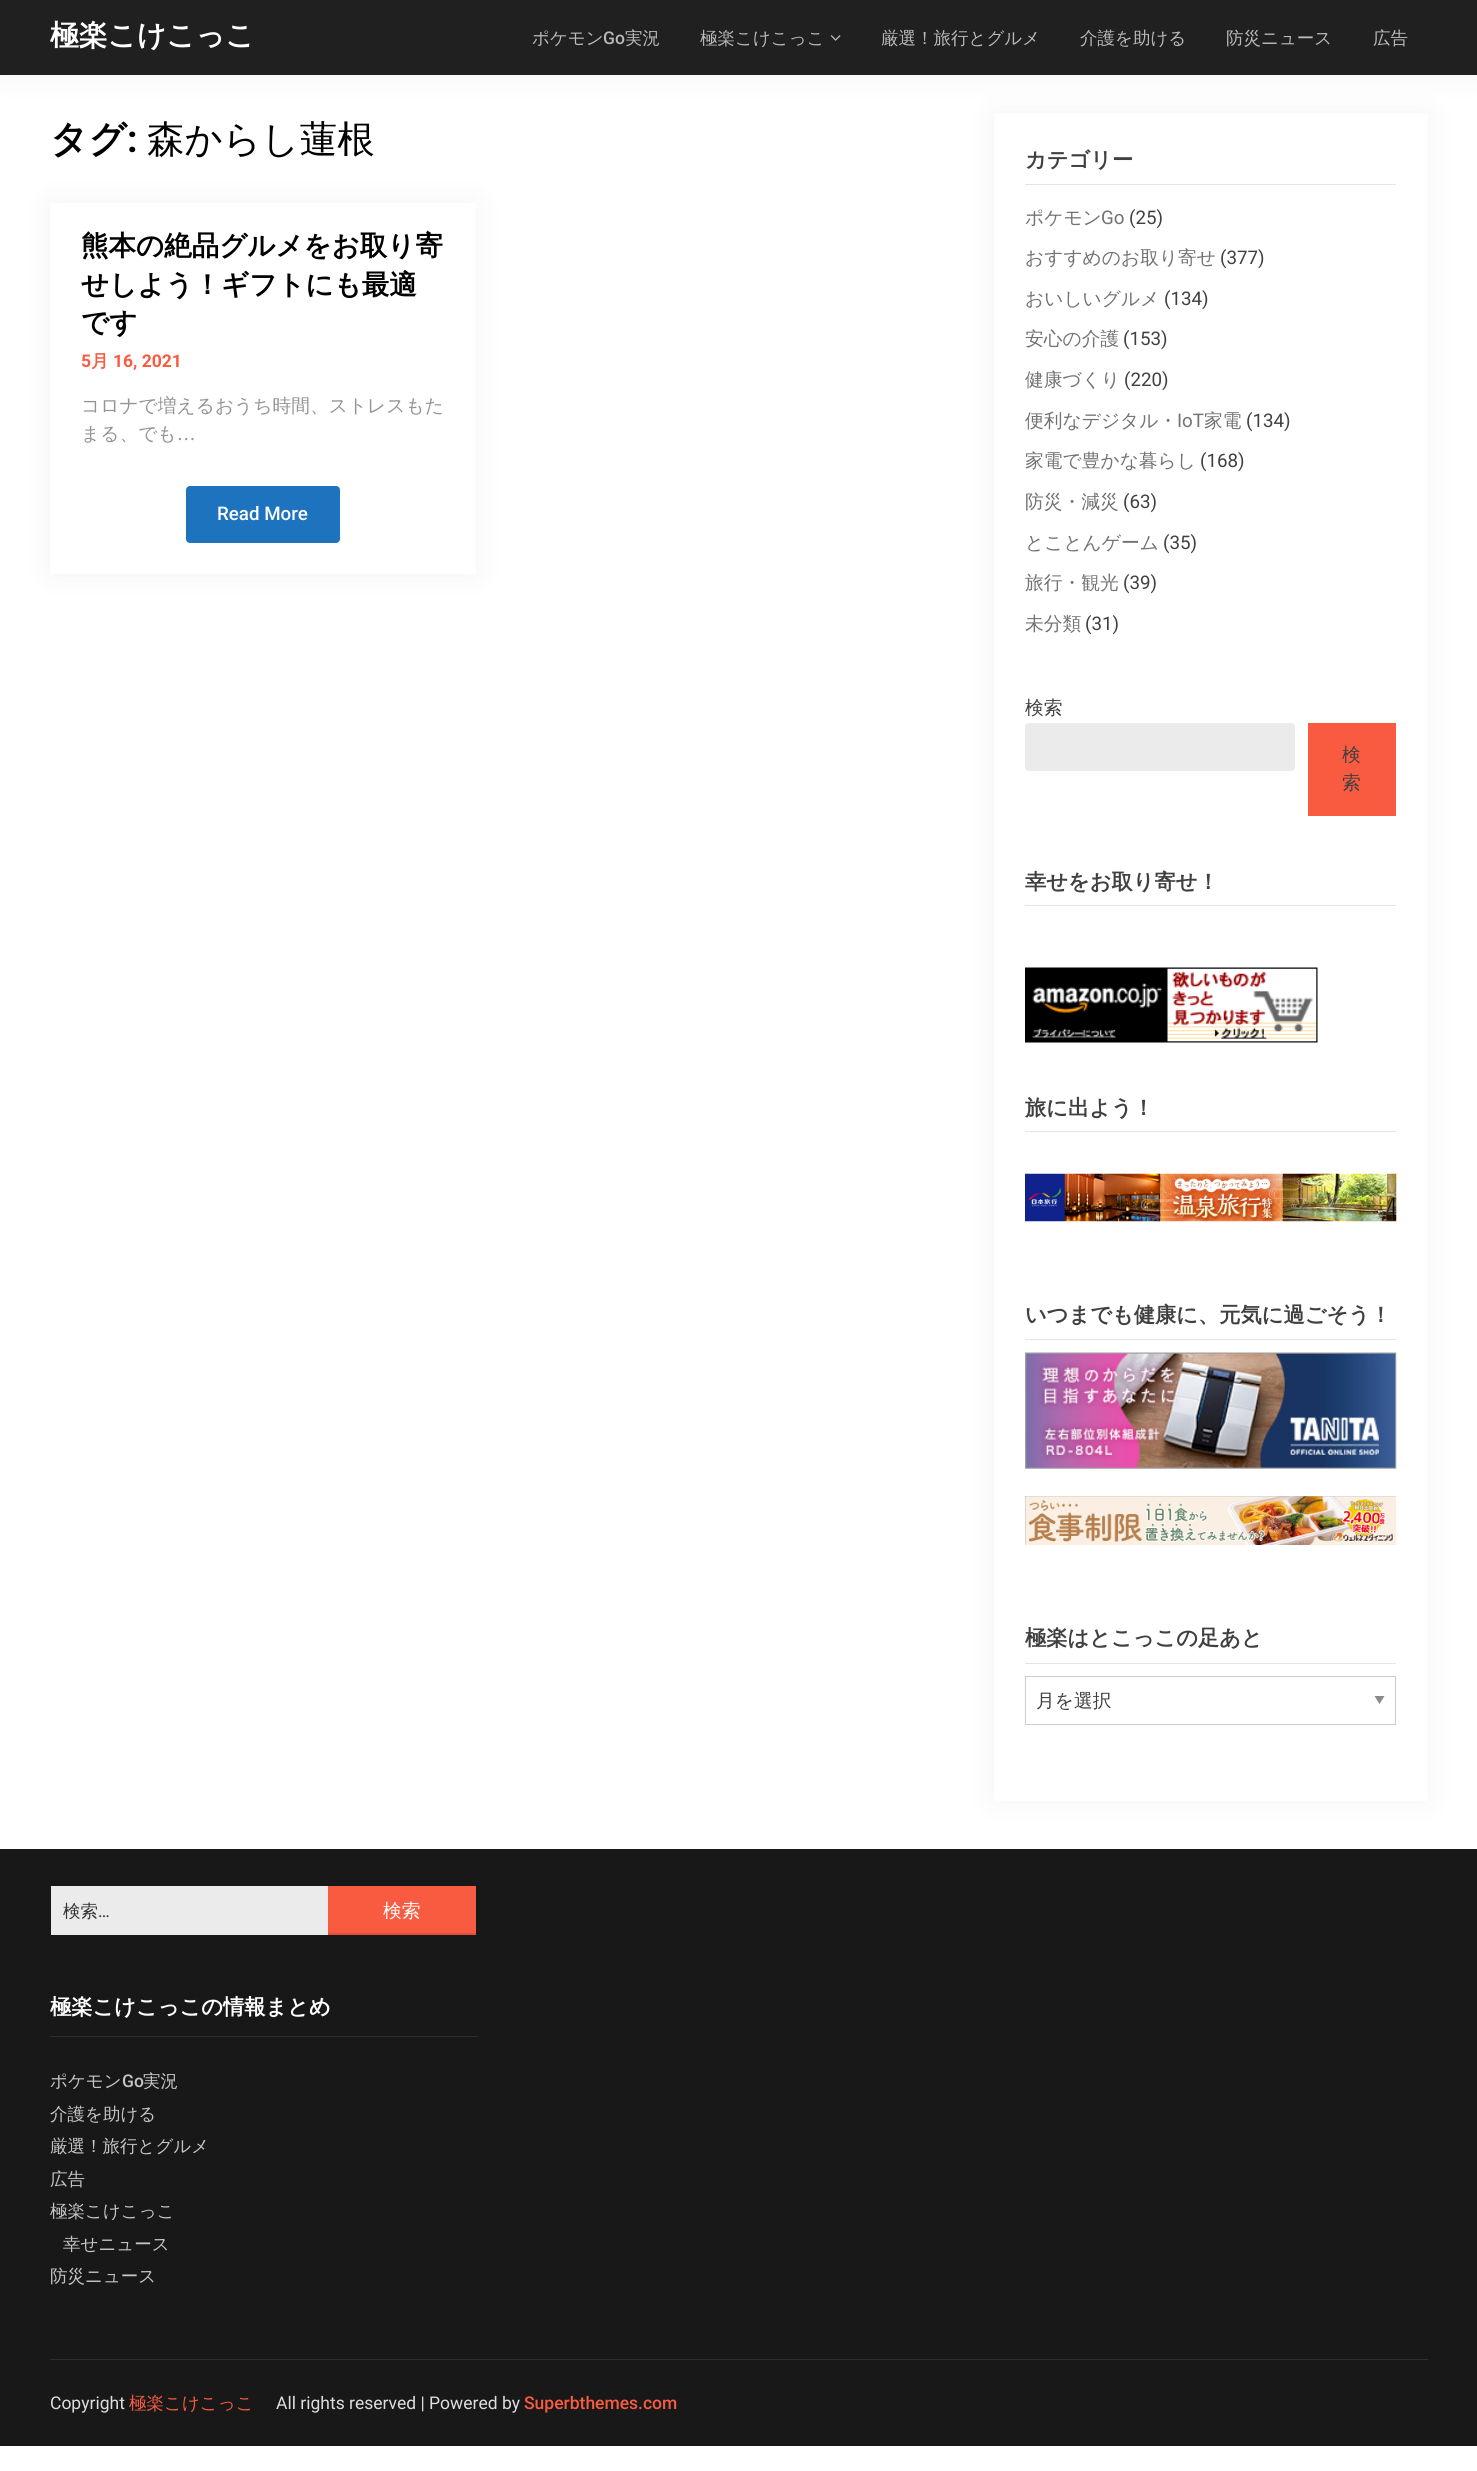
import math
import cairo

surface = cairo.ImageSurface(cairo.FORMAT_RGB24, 1477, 2471)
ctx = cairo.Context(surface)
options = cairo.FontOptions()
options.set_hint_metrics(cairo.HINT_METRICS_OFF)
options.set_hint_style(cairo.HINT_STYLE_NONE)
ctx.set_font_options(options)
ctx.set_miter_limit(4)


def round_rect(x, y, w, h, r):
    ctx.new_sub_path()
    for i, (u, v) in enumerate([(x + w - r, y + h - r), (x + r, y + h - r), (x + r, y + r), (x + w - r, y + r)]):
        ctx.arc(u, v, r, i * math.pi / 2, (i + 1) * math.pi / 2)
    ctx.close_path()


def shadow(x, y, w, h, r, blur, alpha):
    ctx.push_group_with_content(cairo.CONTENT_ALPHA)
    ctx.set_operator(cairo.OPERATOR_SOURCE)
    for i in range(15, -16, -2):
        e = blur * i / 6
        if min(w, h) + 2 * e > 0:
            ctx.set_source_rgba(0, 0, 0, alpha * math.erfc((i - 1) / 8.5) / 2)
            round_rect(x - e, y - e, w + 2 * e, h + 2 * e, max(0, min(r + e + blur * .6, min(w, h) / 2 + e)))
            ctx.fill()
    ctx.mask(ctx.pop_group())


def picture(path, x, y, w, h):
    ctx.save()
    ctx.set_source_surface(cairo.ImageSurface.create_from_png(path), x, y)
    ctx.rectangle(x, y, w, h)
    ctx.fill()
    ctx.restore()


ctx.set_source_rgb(1, 1, 1)
ctx.paint()
ctx.set_source_rgb(0, 0, 0)
shadow(994, 113, 434, 1688, 2.5, 15.5, 0.05)
ctx.set_source_rgb(1, 1, 1)
round_rect(994, 113, 434, 1688, 2.5)
ctx.fill()
ctx.set_source_rgb(0, 0, 0)
shadow(0, 0, 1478, 75, 0, 15.5, 0.05)
ctx.set_source_rgb(0.125, 0.125, 0.125)
ctx.rectangle(0, 0, 1477, 75)
ctx.fill()
ctx.select_font_face("WenQuanYi Zen Hei", cairo.FONT_SLANT_NORMAL, cairo.FONT_WEIGHT_BOLD)
ctx.set_font_size(28.75)
ctx.set_source_rgb(1, 1, 1)
ctx.move_to(50, 45)
ctx.show_text("極楽こけこっこ")
ctx.select_font_face("WenQuanYi Zen Hei Medium")
ctx.set_font_size(17.5)
ctx.set_source_rgb(0.725, 0.725, 0.725)
ctx.move_to(532, 44)
ctx.show_text("ポケモン")
ctx.select_font_face("Roboto Medium")
ctx.move_to(603, 44)
ctx.show_text("Go")
ctx.select_font_face("WenQuanYi Zen Hei Medium")
ctx.move_to(625, 44)
ctx.show_text("実況")
ctx.move_to(700, 44)
ctx.show_text("極楽こけこっこ")
picture("img1.png", 830, 35, 11, 6)
ctx.move_to(881, 44)
ctx.show_text("厳選！旅行とグルメ")
ctx.move_to(1080, 44)
ctx.show_text("介護を助ける")
ctx.move_to(1226, 44)
ctx.show_text("防災ニュース")
ctx.move_to(1373, 44)
ctx.show_text("広告")
ctx.select_font_face("WenQuanYi Zen Hei", cairo.FONT_SLANT_NORMAL, cairo.FONT_WEIGHT_BOLD)
ctx.set_font_size(37.5)
ctx.set_source_rgb(0, 0, 0)
ctx.move_to(50, 152)
ctx.show_text("タグ")
ctx.select_font_face("Roboto", cairo.FONT_SLANT_NORMAL, cairo.FONT_WEIGHT_BOLD)
ctx.move_to(127, 152)
ctx.show_text(":")
ctx.select_font_face("WenQuanYi Zen Hei Medium")
ctx.move_to(147, 152)
ctx.show_text("森からし蓮根")
ctx.set_source_rgb(0, 0, 0)
shadow(50, 203, 426, 371, 2.5, 15.5, 0.05)
ctx.set_source_rgb(1, 1, 1)
round_rect(50, 203, 426, 371, 2.5)
ctx.fill()
ctx.select_font_face("WenQuanYi Zen Hei", cairo.FONT_SLANT_NORMAL, cairo.FONT_WEIGHT_BOLD)
ctx.set_font_size(27.5)
ctx.set_source_rgb(0, 0, 0)
ctx.move_to(81, 255)
ctx.show_text("熊本の絶品グルメをお取り寄")
ctx.move_to(81, 294)
ctx.show_text("せしよう！ギフトにも最適")
ctx.move_to(81, 332)
ctx.show_text("です")
ctx.select_font_face("Roboto", cairo.FONT_SLANT_NORMAL, cairo.FONT_WEIGHT_BOLD)
ctx.set_font_size(17.5)
ctx.set_source_rgb(0.976, 0.357, 0.255)
ctx.move_to(81, 367)
ctx.show_text("5")
ctx.select_font_face("WenQuanYi Zen Hei", cairo.FONT_SLANT_NORMAL, cairo.FONT_WEIGHT_BOLD)
ctx.move_to(91, 367)
ctx.show_text("月")
ctx.select_font_face("Roboto", cairo.FONT_SLANT_NORMAL, cairo.FONT_WEIGHT_BOLD)
ctx.move_to(113, 367)
ctx.show_text("16, 2021")
ctx.select_font_face("WenQuanYi Zen Hei Medium")
ctx.set_font_size(18.75)
ctx.set_source_rgb(0.58, 0.58, 0.58)
ctx.move_to(81, 412)
ctx.show_text("コロナで増えるおうち時間、ストレスもた")
ctx.move_to(81, 440)
ctx.show_text("まる、でも")
ctx.select_font_face("Source Sans Pro")
ctx.move_to(177, 440)
ctx.show_text("…")
ctx.set_source_rgb(0.118, 0.451, 0.745)
round_rect(186, 486, 154, 57, 4)
ctx.fill()
ctx.select_font_face("Roboto Medium")
ctx.set_source_rgb(1, 1, 1)
ctx.move_to(217, 520)
ctx.show_text("Read More")
ctx.set_source_rgb(0.894, 0.894, 0.894)
ctx.rectangle(1025, 184, 371, 1)
ctx.fill()
ctx.select_font_face("WenQuanYi Zen Hei", cairo.FONT_SLANT_NORMAL, cairo.FONT_WEIGHT_BOLD)
ctx.set_font_size(21.25)
ctx.set_source_rgb(0.251, 0.251, 0.251)
ctx.move_to(1025, 167)
ctx.show_text("カテゴリー")
ctx.select_font_face("WenQuanYi Zen Hei Medium")
ctx.set_font_size(18.75)
ctx.set_source_rgb(0.447, 0.447, 0.447)
ctx.move_to(1025, 224)
ctx.show_text("ポケモン")
ctx.select_font_face("Roboto")
ctx.move_to(1101, 224)
ctx.show_text("Go")
ctx.set_source_rgb(0.251, 0.251, 0.251)
ctx.move_to(1129, 224)
ctx.show_text("(25)")
ctx.select_font_face("WenQuanYi Zen Hei Medium")
ctx.set_source_rgb(0.447, 0.447, 0.447)
ctx.move_to(1025, 264)
ctx.show_text("おすすめのお取り寄せ")
ctx.select_font_face("Roboto")
ctx.set_source_rgb(0.251, 0.251, 0.251)
ctx.move_to(1220, 264)
ctx.show_text("(377)")
ctx.select_font_face("WenQuanYi Zen Hei Medium")
ctx.set_source_rgb(0.447, 0.447, 0.447)
ctx.move_to(1025, 305)
ctx.show_text("おいしいグルメ")
ctx.select_font_face("Roboto")
ctx.set_source_rgb(0.251, 0.251, 0.251)
ctx.move_to(1164, 305)
ctx.show_text("(134)")
ctx.select_font_face("WenQuanYi Zen Hei Medium")
ctx.set_source_rgb(0.447, 0.447, 0.447)
ctx.move_to(1025, 345)
ctx.show_text("安心の介護")
ctx.select_font_face("Roboto")
ctx.set_source_rgb(0.251, 0.251, 0.251)
ctx.move_to(1123, 345)
ctx.show_text("(153)")
ctx.select_font_face("WenQuanYi Zen Hei Medium")
ctx.set_source_rgb(0.447, 0.447, 0.447)
ctx.move_to(1025, 386)
ctx.show_text("健康づくり")
ctx.select_font_face("Roboto")
ctx.set_source_rgb(0.251, 0.251, 0.251)
ctx.move_to(1124, 386)
ctx.show_text("(220)")
ctx.select_font_face("WenQuanYi Zen Hei Medium")
ctx.set_source_rgb(0.447, 0.447, 0.447)
ctx.move_to(1025, 427)
ctx.show_text("便利なデジタル・")
ctx.select_font_face("Roboto")
ctx.move_to(1177, 427)
ctx.show_text("IoT")
ctx.select_font_face("WenQuanYi Zen Hei Medium")
ctx.move_to(1204, 427)
ctx.show_text("家電")
ctx.select_font_face("Roboto")
ctx.set_source_rgb(0.251, 0.251, 0.251)
ctx.move_to(1246, 427)
ctx.show_text("(134)")
ctx.select_font_face("WenQuanYi Zen Hei Medium")
ctx.set_source_rgb(0.447, 0.447, 0.447)
ctx.move_to(1025, 467)
ctx.show_text("家電で豊かな暮らし")
ctx.select_font_face("Roboto")
ctx.set_source_rgb(0.251, 0.251, 0.251)
ctx.move_to(1200, 467)
ctx.show_text("(168)")
ctx.select_font_face("WenQuanYi Zen Hei Medium")
ctx.set_source_rgb(0.447, 0.447, 0.447)
ctx.move_to(1025, 508)
ctx.show_text("防災・減災")
ctx.select_font_face("Roboto")
ctx.set_source_rgb(0.251, 0.251, 0.251)
ctx.move_to(1123, 508)
ctx.show_text("(63)")
ctx.select_font_face("WenQuanYi Zen Hei Medium")
ctx.set_source_rgb(0.447, 0.447, 0.447)
ctx.move_to(1025, 549)
ctx.show_text("とことんゲーム")
ctx.select_font_face("Roboto")
ctx.set_source_rgb(0.251, 0.251, 0.251)
ctx.move_to(1163, 549)
ctx.show_text("(35)")
ctx.select_font_face("WenQuanYi Zen Hei Medium")
ctx.set_source_rgb(0.447, 0.447, 0.447)
ctx.move_to(1025, 589)
ctx.show_text("旅行・観光")
ctx.select_font_face("Roboto")
ctx.set_source_rgb(0.251, 0.251, 0.251)
ctx.move_to(1123, 589)
ctx.show_text("(39)")
ctx.select_font_face("WenQuanYi Zen Hei Medium")
ctx.set_source_rgb(0.447, 0.447, 0.447)
ctx.move_to(1025, 630)
ctx.show_text("未分類")
ctx.select_font_face("Roboto")
ctx.set_source_rgb(0.251, 0.251, 0.251)
ctx.move_to(1085, 630)
ctx.show_text("(31)")
ctx.select_font_face("WenQuanYi Zen Hei Medium")
ctx.move_to(1025, 714)
ctx.show_text("検索")
ctx.set_source_rgb(0.918, 0.918, 0.918)
round_rect(1025, 723, 270, 48, 4)
ctx.fill()
ctx.set_source_rgb(0.976, 0.357, 0.255)
ctx.rectangle(1308, 723, 88, 93)
ctx.fill()
ctx.set_source_rgb(0.251, 0.251, 0.251)
ctx.move_to(1342, 761)
ctx.show_text("検")
ctx.move_to(1342, 789)
ctx.show_text("索")
ctx.set_source_rgb(0.894, 0.894, 0.894)
ctx.rectangle(1025, 905, 371, 1)
ctx.fill()
ctx.select_font_face("WenQuanYi Zen Hei", cairo.FONT_SLANT_NORMAL, cairo.FONT_WEIGHT_BOLD)
ctx.set_font_size(21.25)
ctx.set_source_rgb(0.251, 0.251, 0.251)
ctx.move_to(1025, 889)
ctx.show_text("幸せをお取り寄せ！")
picture("img2.png", 1025, 967, 293, 76)
ctx.set_source_rgb(0.894, 0.894, 0.894)
ctx.rectangle(1025, 1131, 371, 1)
ctx.fill()
ctx.set_source_rgb(0.251, 0.251, 0.251)
ctx.move_to(1025, 1115)
ctx.show_text("旅に出よう！")
picture("img3.png", 1025, 1173, 372, 49)
ctx.set_source_rgb(0.894, 0.894, 0.894)
ctx.rectangle(1025, 1339, 371, 1)
ctx.fill()
ctx.set_source_rgb(0.251, 0.251, 0.251)
ctx.move_to(1025, 1322)
ctx.show_text("いつまでも健康に、元気に過ごそう！")
picture("img4.png", 1025, 1352, 372, 117)
picture("img5.png", 1025, 1496, 372, 49)
ctx.set_source_rgb(0.894, 0.894, 0.894)
ctx.rectangle(1025, 1663, 371, 1)
ctx.fill()
ctx.set_source_rgb(0.251, 0.251, 0.251)
ctx.move_to(1025, 1645)
ctx.show_text("極楽はとこっこの足あと")
ctx.set_source_rgb(0.541, 0.541, 0.541)
ctx.new_path()
ctx.move_to(1374.5, 1696)
ctx.line_to(1384.5, 1696)
ctx.line_to(1379.5, 1704)
ctx.close_path()
ctx.fill()
ctx.rectangle(1025.5, 1676.5, 370, 48)
ctx.set_source_rgb(0.8, 0.8, 0.8)
ctx.set_line_width(1)
ctx.stroke()
ctx.select_font_face("WenQuanYi Zen Hei Medium")
ctx.set_font_size(18.75)
ctx.set_source_rgb(0.251, 0.251, 0.251)
ctx.move_to(1036, 1707)
ctx.show_text("月を選択")
ctx.set_source_rgb(0.094, 0.094, 0.094)
ctx.rectangle(0, 1849, 1477, 597)
ctx.fill()
ctx.set_source_rgb(0.184, 0.184, 0.184)
ctx.rectangle(50, 2359, 1378, 1)
ctx.fill()
ctx.set_source_rgb(0.918, 0.918, 0.918)
ctx.rectangle(51, 1886, 277, 49)
ctx.fill()
ctx.set_font_size(17.5)
ctx.set_source_rgb(0.2, 0.2, 0.2)
ctx.move_to(63, 1917)
ctx.show_text("検索")
ctx.select_font_face("Roboto")
ctx.move_to(98, 1917)
ctx.show_text("…")
ctx.set_source_rgb(0.976, 0.357, 0.255)
ctx.rectangle(328, 1886, 148, 47)
ctx.fill()
ctx.set_source_rgb(0.878, 0.322, 0.231)
ctx.rectangle(328, 1933, 148, 2)
ctx.fill()
ctx.select_font_face("WenQuanYi Zen Hei Medium")
ctx.set_font_size(18.75)
ctx.set_source_rgb(1, 1, 1)
ctx.move_to(383, 1917)
ctx.show_text("検索")
ctx.set_source_rgb(0.184, 0.184, 0.184)
ctx.rectangle(50, 2036, 428, 1)
ctx.fill()
ctx.select_font_face("WenQuanYi Zen Hei", cairo.FONT_SLANT_NORMAL, cairo.FONT_WEIGHT_BOLD)
ctx.set_font_size(21.25)
ctx.set_source_rgb(1, 1, 1)
ctx.move_to(50, 2014)
ctx.show_text("極楽こけこっこの情報まとめ")
ctx.select_font_face("WenQuanYi Zen Hei Medium")
ctx.set_font_size(17.5)
ctx.set_source_rgb(0.773, 0.773, 0.773)
ctx.move_to(50, 2087)
ctx.show_text("ポケモン")
ctx.select_font_face("Roboto Medium")
ctx.move_to(122, 2087)
ctx.show_text("Go")
ctx.select_font_face("WenQuanYi Zen Hei Medium")
ctx.move_to(143, 2087)
ctx.show_text("実況")
ctx.move_to(50, 2120)
ctx.show_text("介護を助ける")
ctx.move_to(50, 2152)
ctx.show_text("厳選！旅行とグルメ")
ctx.move_to(50, 2185)
ctx.show_text("広告")
ctx.move_to(50, 2217)
ctx.show_text("極楽こけこっこ")
ctx.move_to(63, 2250)
ctx.show_text("幸せニュース")
ctx.move_to(50, 2282)
ctx.show_text("防災ニュース")
ctx.select_font_face("Roboto")
ctx.set_source_rgb(0.871, 0.871, 0.871)
ctx.move_to(50, 2409)
ctx.show_text("Copyright")
ctx.select_font_face("WenQuanYi Zen Hei Medium")
ctx.set_source_rgb(0.976, 0.357, 0.255)
ctx.move_to(129, 2409)
ctx.show_text("極楽こけこっこ")
ctx.select_font_face("Roboto")
ctx.set_source_rgb(0.871, 0.871, 0.871)
ctx.move_to(276, 2409)
ctx.show_text("All rights reserved | Powered by")
ctx.select_font_face("Roboto Medium")
ctx.set_source_rgb(0.976, 0.357, 0.255)
ctx.move_to(524, 2409)
ctx.show_text("Superbthemes.com")
surface.write_to_png("page.png")
